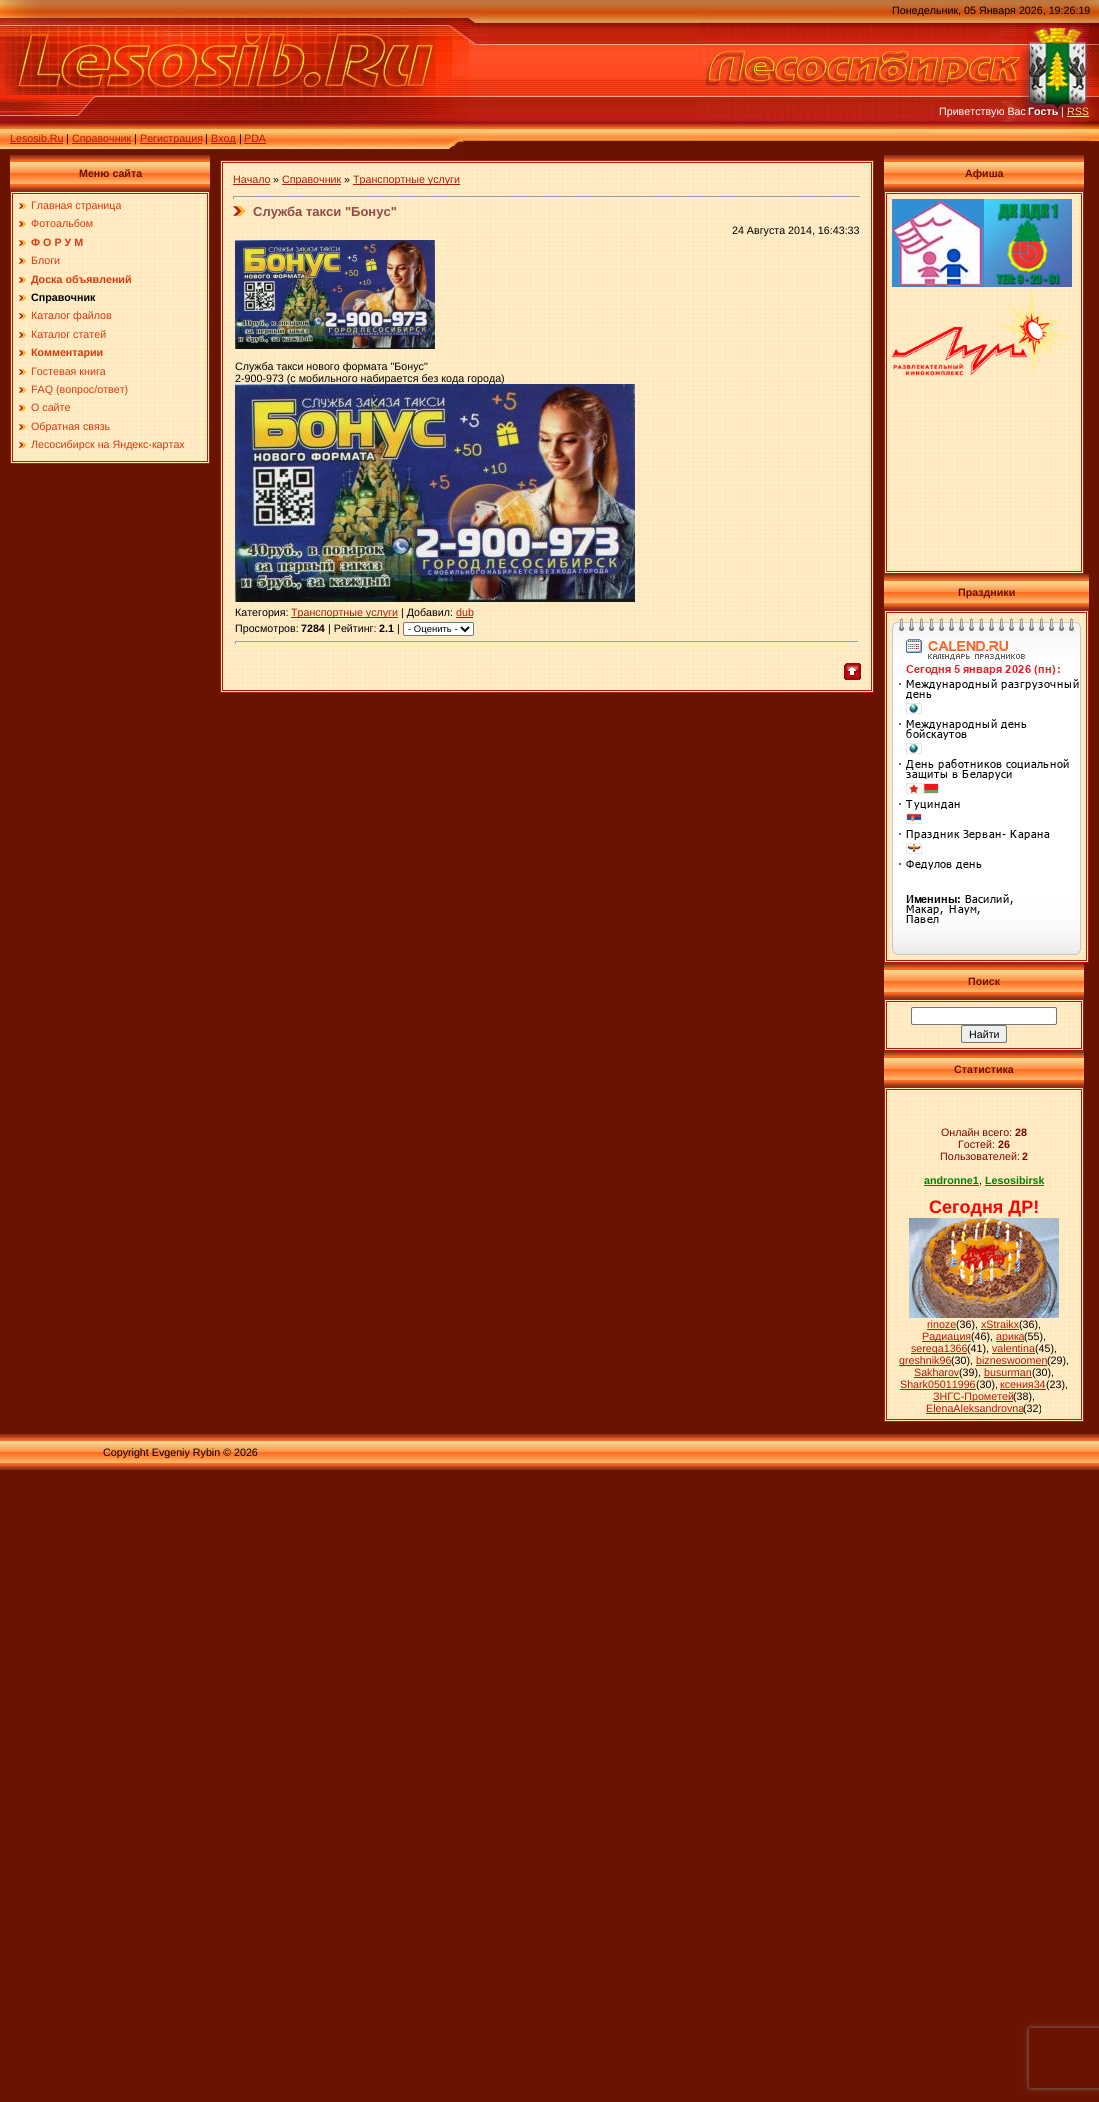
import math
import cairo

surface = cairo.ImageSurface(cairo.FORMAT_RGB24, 1099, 2102)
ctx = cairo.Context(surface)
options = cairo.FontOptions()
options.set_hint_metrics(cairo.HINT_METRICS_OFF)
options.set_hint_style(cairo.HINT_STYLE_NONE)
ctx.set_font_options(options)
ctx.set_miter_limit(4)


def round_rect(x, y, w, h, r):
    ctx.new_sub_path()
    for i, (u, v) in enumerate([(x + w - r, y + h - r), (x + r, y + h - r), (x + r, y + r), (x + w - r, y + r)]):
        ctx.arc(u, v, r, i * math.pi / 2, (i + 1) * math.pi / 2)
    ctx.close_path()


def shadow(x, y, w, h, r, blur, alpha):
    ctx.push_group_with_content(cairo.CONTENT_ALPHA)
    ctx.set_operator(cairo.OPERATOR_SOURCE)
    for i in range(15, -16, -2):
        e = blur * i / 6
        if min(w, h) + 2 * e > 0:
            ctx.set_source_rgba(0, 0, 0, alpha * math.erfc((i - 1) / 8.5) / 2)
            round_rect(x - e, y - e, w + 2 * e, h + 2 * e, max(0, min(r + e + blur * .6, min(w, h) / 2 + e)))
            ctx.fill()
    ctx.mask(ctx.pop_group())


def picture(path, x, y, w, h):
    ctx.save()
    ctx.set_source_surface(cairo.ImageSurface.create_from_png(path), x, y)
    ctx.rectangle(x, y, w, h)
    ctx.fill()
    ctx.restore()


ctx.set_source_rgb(0.412, 0.078, 0)
ctx.paint()
picture("img1.png", 489, 0, 210, 155)
picture("img2.png", 699, 0, 400, 155)
ctx.select_font_face("Liberation Sans")
ctx.set_font_size(10.7)
ctx.set_source_rgb(0, 0, 0)
ctx.move_to(892, 14)
ctx.show_text("Понедельник, 05 Января 2026, 19:26:19")
ctx.set_source_rgb(1, 1, 1)
ctx.move_to(939, 115)
ctx.show_text("Приветствую Вас")
ctx.select_font_face("Liberation Sans", cairo.FONT_SLANT_NORMAL, cairo.FONT_WEIGHT_BOLD)
ctx.move_to(1028, 115)
ctx.show_text("Гость")
ctx.select_font_face("Liberation Sans")
ctx.move_to(1061, 115)
ctx.show_text("|")
ctx.set_source_rgb(1, 0.863, 0.6)
ctx.move_to(1067, 115)
ctx.show_text("RSS")
ctx.rectangle(1067, 116, 22, 1)
ctx.fill()
picture("img3.png", 0, 0, 489, 155)
ctx.set_source_rgb(0.698, 0.106, 0.016)
ctx.move_to(10, 142)
ctx.show_text("Lesosib.Ru")
ctx.rectangle(10, 143, 53, 1)
ctx.fill()
ctx.set_source_rgb(0, 0, 0)
ctx.move_to(66, 142)
ctx.show_text("|")
ctx.set_source_rgb(0.698, 0.106, 0.016)
ctx.rectangle(72, 143, 59, 1)
ctx.fill()
ctx.move_to(72, 142)
ctx.show_text("Справочник")
ctx.set_source_rgb(0, 0, 0)
ctx.move_to(134, 142)
ctx.show_text("|")
ctx.set_source_rgb(0.698, 0.106, 0.016)
ctx.rectangle(140, 143, 62, 1)
ctx.fill()
ctx.move_to(140, 142)
ctx.show_text("Регистрация")
ctx.set_source_rgb(0, 0, 0)
ctx.move_to(205, 142)
ctx.show_text("|")
ctx.set_source_rgb(0.698, 0.106, 0.016)
ctx.rectangle(211, 143, 25, 1)
ctx.fill()
ctx.move_to(211, 142)
ctx.show_text("Вход")
ctx.set_source_rgb(0, 0, 0)
ctx.move_to(239, 142)
ctx.show_text("|")
ctx.set_source_rgb(0.698, 0.106, 0.016)
ctx.move_to(244, 142)
ctx.show_text("PDA")
ctx.rectangle(244, 143, 22, 1)
ctx.fill()
picture("img4.png", 10, 155, 200, 36)
ctx.select_font_face("Liberation Sans", cairo.FONT_SLANT_NORMAL, cairo.FONT_WEIGHT_BOLD)
ctx.set_source_rgb(0.412, 0.078, 0)
ctx.move_to(79, 177)
ctx.show_text("Меню сайта")
picture("img5.png", 11, 192, 198, 271)
ctx.rectangle(10.5, 191.5, 199, 272)
ctx.set_source_rgb(0.698, 0.106, 0.016)
ctx.set_line_width(1)
ctx.stroke()
ctx.rectangle(12.5, 193.5, 195, 268)
ctx.stroke()
picture("img6.png", 18, 202, 8, 8)
ctx.select_font_face("Liberation Sans")
ctx.set_source_rgb(0.863, 0.216, 0.051)
ctx.move_to(31, 209)
ctx.show_text("Главная страница")
picture("img6.png", 18, 220, 8, 8)
ctx.move_to(31, 227)
ctx.show_text("Фотоальбом")
picture("img6.png", 18, 239, 8, 8)
ctx.select_font_face("Liberation Sans", cairo.FONT_SLANT_NORMAL, cairo.FONT_WEIGHT_BOLD)
ctx.move_to(31, 246)
ctx.show_text("Ф О Р У М")
picture("img6.png", 18, 257, 8, 8)
ctx.select_font_face("Liberation Sans")
ctx.move_to(31, 264)
ctx.show_text("Блоги")
picture("img6.png", 18, 276, 8, 8)
ctx.select_font_face("Liberation Sans", cairo.FONT_SLANT_NORMAL, cairo.FONT_WEIGHT_BOLD)
ctx.move_to(31, 283)
ctx.show_text("Доска объявлений")
picture("img6.png", 18, 294, 8, 8)
ctx.set_source_rgb(0, 0, 0)
ctx.move_to(31, 301)
ctx.show_text("Справочник")
picture("img6.png", 18, 312, 8, 8)
ctx.select_font_face("Liberation Sans")
ctx.set_source_rgb(0.863, 0.216, 0.051)
ctx.move_to(31, 319)
ctx.show_text("Каталог файлов")
picture("img6.png", 18, 331, 8, 8)
ctx.move_to(31, 338)
ctx.show_text("Каталог статей")
picture("img6.png", 18, 349, 8, 8)
ctx.select_font_face("Liberation Sans", cairo.FONT_SLANT_NORMAL, cairo.FONT_WEIGHT_BOLD)
ctx.move_to(31, 356)
ctx.show_text("Комментарии")
picture("img6.png", 18, 368, 8, 8)
ctx.select_font_face("Liberation Sans")
ctx.move_to(31, 375)
ctx.show_text("Гостевая книга")
picture("img6.png", 18, 386, 8, 8)
ctx.move_to(31, 393)
ctx.show_text("FAQ (вопрос/ответ)")
picture("img6.png", 18, 404, 8, 8)
ctx.move_to(31, 411)
ctx.show_text("О сайте")
picture("img6.png", 18, 423, 8, 8)
ctx.move_to(31, 430)
ctx.show_text("Обратная связь")
picture("img6.png", 18, 441, 8, 8)
ctx.move_to(31, 448)
ctx.show_text("Лесосибирск на Яндекс-картах")
picture("img7.png", 221, 161, 652, 531)
ctx.rectangle(220.5, 160.5, 653, 532)
ctx.set_source_rgb(0.698, 0.106, 0.016)
ctx.stroke()
ctx.rectangle(222.5, 162.5, 649, 528)
ctx.stroke()
ctx.move_to(233, 183)
ctx.show_text("Начало")
ctx.rectangle(233, 184, 37, 1)
ctx.fill()
ctx.set_source_rgb(0, 0, 0)
ctx.move_to(273, 183)
ctx.show_text("»")
ctx.set_source_rgb(0.698, 0.106, 0.016)
ctx.rectangle(282, 184, 59, 1)
ctx.fill()
ctx.move_to(282, 183)
ctx.show_text("Справочник")
ctx.set_source_rgb(0, 0, 0)
ctx.move_to(344, 183)
ctx.show_text("»")
ctx.set_source_rgb(0.698, 0.106, 0.016)
ctx.rectangle(353, 184, 107, 1)
ctx.fill()
ctx.move_to(353, 183)
ctx.show_text("Транспортные услуги")
ctx.set_source_rgb(0.624, 0.624, 0.624)
ctx.rectangle(233, 196, 628, 1)
ctx.fill()
ctx.set_source_rgb(0.933, 0.933, 0.933)
ctx.rectangle(860, 196, 1, 3)
ctx.fill()
ctx.rectangle(233, 198, 628, 1)
ctx.fill()
ctx.set_source_rgb(0.624, 0.624, 0.624)
ctx.rectangle(233, 196, 1, 3)
ctx.fill()
picture("img8.png", 233, 204, 14, 14)
ctx.select_font_face("Liberation Sans", cairo.FONT_SLANT_NORMAL, cairo.FONT_WEIGHT_BOLD)
ctx.set_font_size(13)
ctx.set_source_rgb(0.576, 0.29, 0.29)
ctx.move_to(253, 216)
ctx.show_text("Служба такси \"Бонус\"")
ctx.select_font_face("Liberation Sans")
ctx.set_font_size(10.7)
ctx.set_source_rgb(0, 0, 0)
ctx.move_to(732, 234)
ctx.show_text("24 Августа 2014, 16:43:33")
picture("img9.png", 235, 240, 200, 109)
ctx.move_to(235, 370)
ctx.show_text("Служба такси нового формата \"Бонус\"")
ctx.move_to(235, 382)
ctx.show_text("2-900-973 (с мобильного набирается без кода города)")
picture("img10.png", 235, 384, 400, 218)
ctx.move_to(235, 616)
ctx.show_text("Категория:")
ctx.set_source_rgb(0.698, 0.106, 0.016)
ctx.rectangle(291, 617, 107, 1)
ctx.fill()
ctx.move_to(291, 616)
ctx.show_text("Транспортные услуги")
ctx.set_source_rgb(0, 0, 0)
ctx.move_to(401, 616)
ctx.show_text("| Добавил:")
ctx.set_source_rgb(0.698, 0.106, 0.016)
ctx.move_to(456, 616)
ctx.show_text("dub")
ctx.rectangle(456, 617, 17, 1)
ctx.fill()
ctx.set_source_rgb(0, 0, 0)
ctx.move_to(235, 632)
ctx.show_text("Просмотров:")
ctx.select_font_face("Liberation Sans", cairo.FONT_SLANT_NORMAL, cairo.FONT_WEIGHT_BOLD)
ctx.move_to(301, 632)
ctx.show_text("7284")
ctx.select_font_face("Liberation Sans")
ctx.move_to(328, 632)
ctx.show_text("| Рейтинг:")
ctx.select_font_face("Liberation Sans", cairo.FONT_SLANT_NORMAL, cairo.FONT_WEIGHT_BOLD)
ctx.move_to(379, 632)
ctx.show_text("2.1")
ctx.select_font_face("Liberation Sans")
ctx.move_to(397, 632)
ctx.show_text("|")
ctx.set_source_rgb(1, 1, 1)
round_rect(403.5, 622.5, 70, 13, 1.5)
ctx.fill_preserve()
ctx.set_source_rgb(0.463, 0.463, 0.463)
ctx.stroke()
ctx.new_path()
ctx.move_to(461, 627)
ctx.line_to(465, 631)
ctx.line_to(469, 627)
ctx.set_source_rgb(0, 0, 0)
ctx.set_line_width(2)
ctx.stroke()
ctx.set_font_size(9.5)
ctx.move_to(408, 632)
ctx.show_text("- Оценить -")
ctx.set_source_rgb(0.624, 0.624, 0.624)
ctx.rectangle(235, 641, 624, 1)
ctx.fill()
ctx.set_source_rgb(0.933, 0.933, 0.933)
ctx.rectangle(858, 641, 1, 3)
ctx.fill()
ctx.rectangle(235, 643, 624, 1)
ctx.fill()
ctx.set_source_rgb(0.624, 0.624, 0.624)
ctx.rectangle(235, 641, 1, 3)
ctx.fill()
picture("img11.png", 844, 663, 17, 17)
picture("img4.png", 884, 155, 200, 36)
ctx.select_font_face("Liberation Sans", cairo.FONT_SLANT_NORMAL, cairo.FONT_WEIGHT_BOLD)
ctx.set_font_size(10.7)
ctx.set_source_rgb(0.412, 0.078, 0)
ctx.move_to(965, 177)
ctx.show_text("Афиша")
picture("img12.png", 885, 192, 198, 381)
ctx.rectangle(884.5, 191.5, 199, 382)
ctx.set_source_rgb(0.698, 0.106, 0.016)
ctx.set_line_width(1)
ctx.stroke()
ctx.rectangle(886.5, 193.5, 195, 378)
ctx.stroke()
picture("img13.png", 892, 199, 92, 88)
picture("img14.png", 984, 199, 88, 88)
picture("img15.png", 892, 287, 180, 89)
picture("img16.png", 884, 574, 205, 36)
ctx.set_source_rgb(0.412, 0.078, 0)
ctx.move_to(958, 596)
ctx.show_text("Праздники")
picture("img17.png", 885, 611, 203, 351)
ctx.rectangle(884.5, 610.5, 204, 352)
ctx.set_source_rgb(0.698, 0.106, 0.016)
ctx.stroke()
ctx.rectangle(886.5, 612.5, 200, 348)
ctx.stroke()
picture("img18.png", 892, 618, 189, 337)
picture("img4.png", 884, 963, 200, 36)
ctx.set_source_rgb(0.412, 0.078, 0)
ctx.move_to(968, 985)
ctx.show_text("Поиск")
picture("img19.png", 885, 1000, 198, 50)
ctx.rectangle(884.5, 999.5, 199, 51)
ctx.set_source_rgb(0.698, 0.106, 0.016)
ctx.stroke()
ctx.rectangle(886.5, 1001.5, 195, 47)
ctx.stroke()
ctx.set_source_rgb(1, 1, 1)
round_rect(911.5, 1007.5, 145, 17, 1.5)
ctx.fill_preserve()
ctx.set_source_rgb(0.463, 0.463, 0.463)
ctx.stroke()
ctx.set_source_rgb(0.937, 0.937, 0.937)
round_rect(961.5, 1025.5, 45, 17, 1.5)
ctx.fill_preserve()
ctx.set_source_rgb(0.463, 0.463, 0.463)
ctx.stroke()
ctx.select_font_face("Liberation Sans")
ctx.set_source_rgb(0, 0, 0)
ctx.move_to(969, 1038)
ctx.show_text("Найти")
picture("img4.png", 884, 1051, 200, 36)
ctx.select_font_face("Liberation Sans", cairo.FONT_SLANT_NORMAL, cairo.FONT_WEIGHT_BOLD)
ctx.set_source_rgb(0.412, 0.078, 0)
ctx.move_to(954, 1073)
ctx.show_text("Статистика")
picture("img20.png", 885, 1088, 198, 333)
ctx.rectangle(884.5, 1087.5, 199, 334)
ctx.set_source_rgb(0.698, 0.106, 0.016)
ctx.stroke()
ctx.rectangle(886.5, 1089.5, 195, 330)
ctx.stroke()
ctx.select_font_face("Liberation Sans")
ctx.set_source_rgb(0.502, 0, 0)
ctx.move_to(941, 1136)
ctx.show_text("Онлайн всего:")
ctx.select_font_face("Liberation Sans", cairo.FONT_SLANT_NORMAL, cairo.FONT_WEIGHT_BOLD)
ctx.move_to(1015, 1136)
ctx.show_text("28")
ctx.select_font_face("Liberation Sans")
ctx.move_to(958, 1148)
ctx.show_text("Гостей:")
ctx.select_font_face("Liberation Sans", cairo.FONT_SLANT_NORMAL, cairo.FONT_WEIGHT_BOLD)
ctx.move_to(998, 1148)
ctx.show_text("26")
ctx.select_font_face("Liberation Sans")
ctx.move_to(940, 1160)
ctx.show_text("Пользователей:")
ctx.select_font_face("Liberation Sans", cairo.FONT_SLANT_NORMAL, cairo.FONT_WEIGHT_BOLD)
ctx.move_to(1022, 1160)
ctx.show_text("2")
ctx.set_source_rgb(0, 0.502, 0)
ctx.move_to(924, 1184)
ctx.show_text("andronne1")
ctx.rectangle(924, 1185, 55, 1)
ctx.fill()
ctx.select_font_face("Liberation Sans")
ctx.set_source_rgb(0, 0, 0)
ctx.move_to(979, 1184)
ctx.show_text(",")
ctx.select_font_face("Liberation Sans", cairo.FONT_SLANT_NORMAL, cairo.FONT_WEIGHT_BOLD)
ctx.set_source_rgb(0, 0.502, 0)
ctx.move_to(985, 1184)
ctx.show_text("Lesosibirsk")
ctx.rectangle(985, 1185, 59, 1)
ctx.fill()
ctx.set_font_size(18)
ctx.set_source_rgb(1, 0, 0)
ctx.move_to(929, 1213)
ctx.show_text("Сегодня ДР!")
picture("img21.png", 909, 1218, 150, 100)
ctx.select_font_face("Liberation Sans")
ctx.set_font_size(10.7)
ctx.set_source_rgb(0.698, 0.106, 0.016)
ctx.move_to(927, 1328)
ctx.show_text("rinoze")
ctx.rectangle(927, 1329, 29, 1)
ctx.fill()
ctx.set_source_rgb(0, 0, 0)
ctx.move_to(956, 1328)
ctx.show_text("(36),")
ctx.set_source_rgb(0.698, 0.106, 0.016)
ctx.move_to(981, 1328)
ctx.show_text("xStraikx")
ctx.rectangle(981, 1329, 38, 1)
ctx.fill()
ctx.set_source_rgb(0, 0, 0)
ctx.move_to(1019, 1328)
ctx.show_text("(36),")
ctx.set_source_rgb(0.698, 0.106, 0.016)
ctx.rectangle(922, 1341, 49, 1)
ctx.fill()
ctx.move_to(922, 1340)
ctx.show_text("Радиация")
ctx.set_source_rgb(0, 0, 0)
ctx.move_to(971, 1340)
ctx.show_text("(46),")
ctx.set_source_rgb(0.698, 0.106, 0.016)
ctx.rectangle(996, 1341, 28, 1)
ctx.fill()
ctx.move_to(996, 1340)
ctx.show_text("арика")
ctx.set_source_rgb(0, 0, 0)
ctx.move_to(1024, 1340)
ctx.show_text("(55),")
ctx.set_source_rgb(0.698, 0.106, 0.016)
ctx.rectangle(911, 1353, 56, 1)
ctx.fill()
ctx.move_to(911, 1352)
ctx.show_text("serega1366")
ctx.set_source_rgb(0, 0, 0)
ctx.move_to(967, 1352)
ctx.show_text("(41),")
ctx.set_source_rgb(0.698, 0.106, 0.016)
ctx.move_to(992, 1352)
ctx.show_text("valentina")
ctx.rectangle(992, 1353, 43, 1)
ctx.fill()
ctx.set_source_rgb(0, 0, 0)
ctx.move_to(1035, 1352)
ctx.show_text("(45),")
ctx.set_source_rgb(0.698, 0.106, 0.016)
ctx.rectangle(899, 1365, 52, 1)
ctx.fill()
ctx.move_to(899, 1364)
ctx.show_text("greshnik96")
ctx.set_source_rgb(0, 0, 0)
ctx.move_to(951, 1364)
ctx.show_text("(30),")
ctx.set_source_rgb(0.698, 0.106, 0.016)
ctx.move_to(976, 1364)
ctx.show_text("bizneswoomen")
ctx.rectangle(976, 1365, 71, 1)
ctx.fill()
ctx.set_source_rgb(0, 0, 0)
ctx.move_to(1047, 1364)
ctx.show_text("(29),")
ctx.set_source_rgb(0.698, 0.106, 0.016)
ctx.move_to(914, 1376)
ctx.show_text("Sakharov")
ctx.rectangle(914, 1377, 45, 1)
ctx.fill()
ctx.set_source_rgb(0, 0, 0)
ctx.move_to(959, 1376)
ctx.show_text("(39),")
ctx.set_source_rgb(0.698, 0.106, 0.016)
ctx.move_to(984, 1376)
ctx.show_text("busurman")
ctx.rectangle(984, 1377, 48, 1)
ctx.fill()
ctx.set_source_rgb(0, 0, 0)
ctx.move_to(1032, 1376)
ctx.show_text("(30),")
ctx.set_source_rgb(0.698, 0.106, 0.016)
ctx.move_to(900, 1388)
ctx.show_text("Shark05011996")
ctx.rectangle(900, 1389, 76, 1)
ctx.fill()
ctx.set_source_rgb(0, 0, 0)
ctx.move_to(976, 1388)
ctx.show_text("(30),")
ctx.set_source_rgb(0.698, 0.106, 0.016)
ctx.move_to(1000, 1388)
ctx.show_text("ксения34")
ctx.rectangle(1000, 1389, 46, 1)
ctx.fill()
ctx.set_source_rgb(0, 0, 0)
ctx.move_to(1046, 1388)
ctx.show_text("(23),")
ctx.set_source_rgb(0.698, 0.106, 0.016)
ctx.rectangle(933, 1401, 80, 1)
ctx.fill()
ctx.move_to(933, 1400)
ctx.show_text("ЗНГС-Прометей")
ctx.set_source_rgb(0, 0, 0)
ctx.move_to(1013, 1400)
ctx.show_text("(38),")
ctx.set_source_rgb(0.698, 0.106, 0.016)
ctx.move_to(926, 1412)
ctx.show_text("ElenaAleksandrovna")
ctx.rectangle(926, 1413, 97, 1)
ctx.fill()
ctx.set_source_rgb(0, 0, 0)
ctx.move_to(1023, 1412)
ctx.show_text("(32)")
picture("img22.png", 0, 1434, 1099, 36)
ctx.move_to(103, 1456)
ctx.show_text("Copyright Evgeniy Rybin © 2026")
ctx.save()
ctx.set_fill_rule(cairo.FILL_RULE_EVEN_ODD)
ctx.new_path()
ctx.move_to(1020, 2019)
ctx.line_to(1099, 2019)
ctx.line_to(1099, 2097)
ctx.line_to(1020, 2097)
ctx.close_path()
ctx.move_to(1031, 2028)
ctx.line_to(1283, 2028)
ctx.curve_to(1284, 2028, 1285, 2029, 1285, 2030)
ctx.line_to(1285, 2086)
ctx.curve_to(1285, 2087, 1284, 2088, 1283, 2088)
ctx.line_to(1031, 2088)
ctx.curve_to(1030, 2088, 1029, 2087, 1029, 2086)
ctx.line_to(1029, 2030)
ctx.curve_to(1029, 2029, 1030, 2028, 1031, 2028)
ctx.close_path()
ctx.clip()
ctx.set_source_rgb(0.502, 0.502, 0.502)
shadow(1029, 2028, 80, 60, 2, 2.5, 1)
ctx.restore()
surface.write_to_png("page.png")
